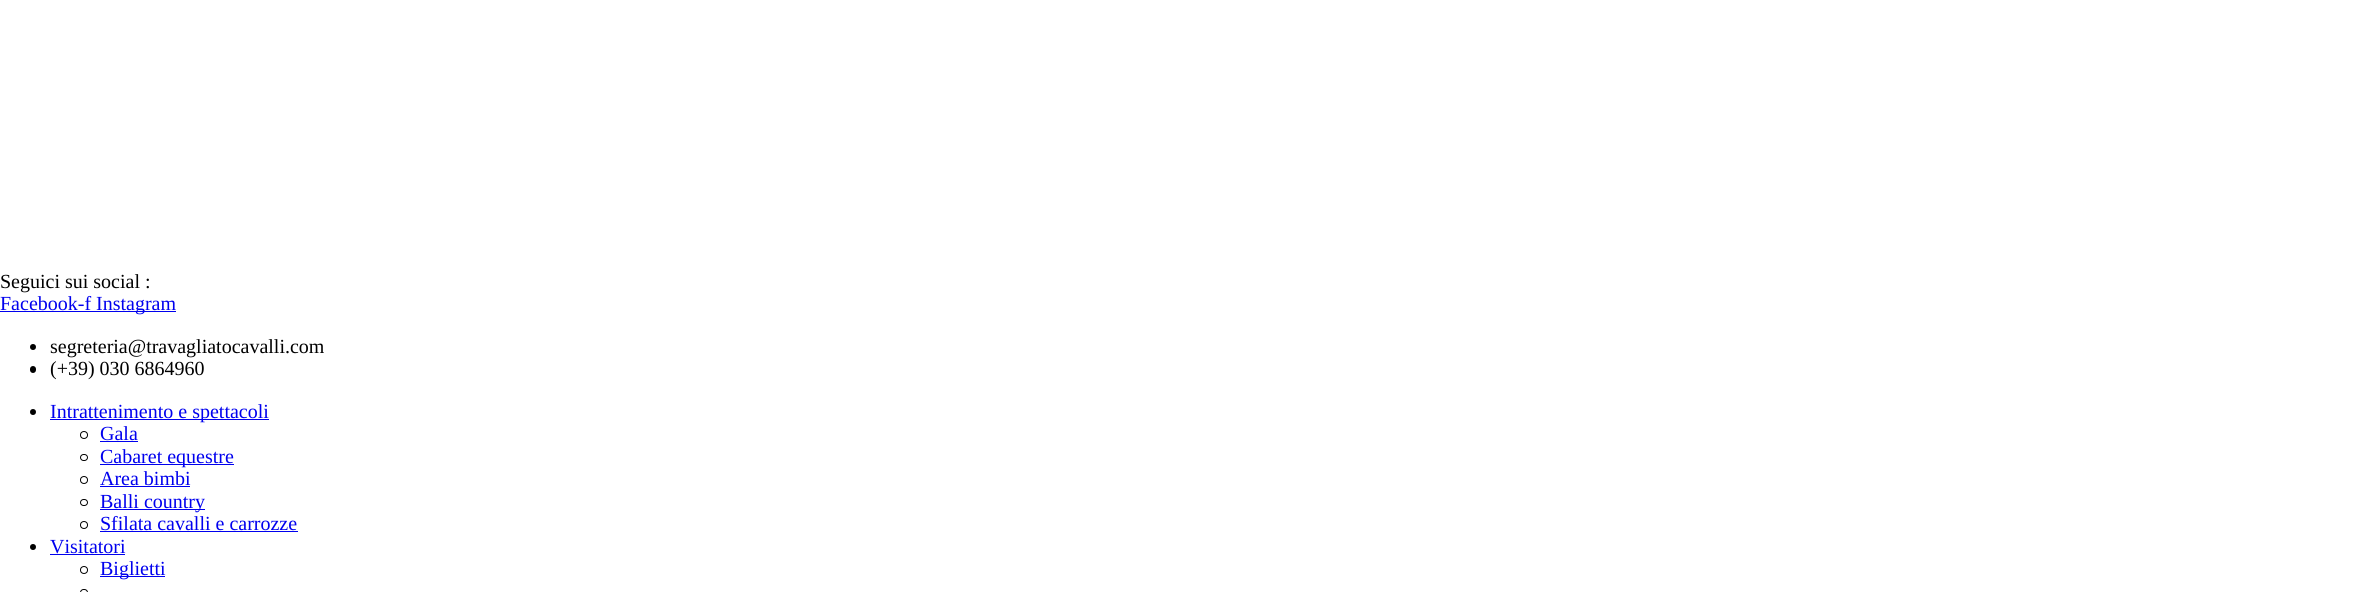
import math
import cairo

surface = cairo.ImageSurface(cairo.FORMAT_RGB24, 2353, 592)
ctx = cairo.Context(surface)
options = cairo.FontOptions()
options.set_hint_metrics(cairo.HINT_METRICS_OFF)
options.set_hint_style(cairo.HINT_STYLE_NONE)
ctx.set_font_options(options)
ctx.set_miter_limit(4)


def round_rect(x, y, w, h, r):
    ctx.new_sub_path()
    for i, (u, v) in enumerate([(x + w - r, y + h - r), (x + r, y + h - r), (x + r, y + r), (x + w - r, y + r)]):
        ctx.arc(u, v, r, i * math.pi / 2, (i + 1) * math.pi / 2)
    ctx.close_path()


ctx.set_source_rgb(1, 1, 1)
ctx.paint()
ctx.select_font_face("Liberation Serif")
ctx.set_font_size(20)
ctx.set_source_rgb(0, 0, 0)
ctx.move_to(0, 288)
ctx.show_text("Seguici sui social :")
ctx.set_source_rgb(0, 0, 0.933)
ctx.rectangle(0, 311, 176, 1)
ctx.fill()
ctx.move_to(0, 310)
ctx.show_text("Facebook-f Instagram")
ctx.set_source_rgb(0, 0, 0)
ctx.new_path()
ctx.arc(33, 347, 3, 0, 2 * math.pi)
ctx.fill()
ctx.move_to(50, 353)
ctx.show_text("segreteria@travagliatocavalli.com")
round_rect(30, 366, 6, 7, 3)
ctx.fill()
ctx.move_to(50, 375)
ctx.show_text("(+39) 030 6864960")
ctx.new_path()
ctx.arc(33, 412, 3, 0, 2 * math.pi)
ctx.fill()
ctx.set_source_rgb(0, 0, 0.933)
ctx.rectangle(50, 419, 219, 1)
ctx.fill()
ctx.move_to(50, 418)
ctx.show_text("Intrattenimento e spettacoli")
ctx.new_path()
ctx.arc(84, 435, 3.5, 0, 2 * math.pi)
ctx.set_source_rgb(0, 0, 0)
ctx.set_line_width(1)
ctx.stroke()
ctx.set_source_rgb(0, 0, 0.933)
ctx.move_to(100, 440)
ctx.show_text("Gala")
ctx.rectangle(100, 441, 38, 1)
ctx.fill()
round_rect(80.5, 454.5, 7, 6, 3)
ctx.set_source_rgb(0, 0, 0)
ctx.stroke()
ctx.set_source_rgb(0, 0, 0.933)
ctx.rectangle(100, 464, 134, 1)
ctx.fill()
ctx.move_to(100, 463)
ctx.show_text("Cabaret equestre")
ctx.new_path()
ctx.arc(84, 480, 3.5, 0, 2 * math.pi)
ctx.set_source_rgb(0, 0, 0)
ctx.stroke()
ctx.set_source_rgb(0, 0, 0.933)
ctx.move_to(100, 485)
ctx.show_text("Area bimbi")
ctx.rectangle(100, 486, 90, 1)
ctx.fill()
round_rect(80.5, 499.5, 7, 6, 3)
ctx.set_source_rgb(0, 0, 0)
ctx.stroke()
ctx.set_source_rgb(0, 0, 0.933)
ctx.rectangle(100, 509, 105, 1)
ctx.fill()
ctx.move_to(100, 508)
ctx.show_text("Balli country")
ctx.new_path()
ctx.arc(84, 525, 3.5, 0, 2 * math.pi)
ctx.set_source_rgb(0, 0, 0)
ctx.stroke()
ctx.set_source_rgb(0, 0, 0.933)
ctx.move_to(100, 530)
ctx.show_text("Sfilata cavalli e carrozze")
ctx.rectangle(100, 531, 198, 1)
ctx.fill()
ctx.set_source_rgb(0, 0, 0)
ctx.arc(33, 547, 3, 0, 2 * math.pi)
ctx.fill()
ctx.set_source_rgb(0, 0, 0.933)
ctx.move_to(50, 553)
ctx.show_text("Visitatori")
ctx.rectangle(50, 554, 75, 1)
ctx.fill()
ctx.arc(84, 570, 3.5, 0, 2 * math.pi)
ctx.set_source_rgb(0, 0, 0)
ctx.stroke()
ctx.set_source_rgb(0, 0, 0.933)
ctx.rectangle(100, 576, 65, 1)
ctx.fill()
ctx.move_to(100, 575)
ctx.show_text("Biglietti")
round_rect(80.5, 589.5, 7, 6, 3)
ctx.set_source_rgb(0, 0, 0)
ctx.stroke()
surface.write_to_png("page.png")
